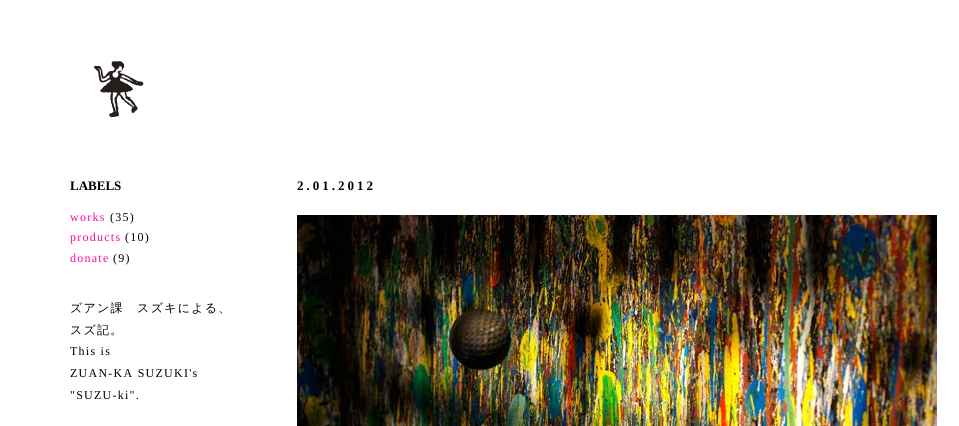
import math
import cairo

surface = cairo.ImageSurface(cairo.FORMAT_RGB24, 959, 426)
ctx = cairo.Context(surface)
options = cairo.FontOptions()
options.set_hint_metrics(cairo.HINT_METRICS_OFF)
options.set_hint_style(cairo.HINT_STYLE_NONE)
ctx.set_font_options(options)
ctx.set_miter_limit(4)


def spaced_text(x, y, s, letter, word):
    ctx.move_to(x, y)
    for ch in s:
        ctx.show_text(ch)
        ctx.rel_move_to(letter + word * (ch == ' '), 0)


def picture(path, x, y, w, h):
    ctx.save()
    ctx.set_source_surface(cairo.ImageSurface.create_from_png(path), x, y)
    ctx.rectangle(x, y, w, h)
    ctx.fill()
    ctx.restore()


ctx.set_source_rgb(1, 1, 1)
ctx.paint()
picture("img1.png", 94, 61, 50, 56)
ctx.select_font_face("Liberation Serif", cairo.FONT_SLANT_NORMAL, cairo.FONT_WEIGHT_BOLD)
ctx.set_font_size(13)
ctx.set_source_rgb(0, 0, 0)
ctx.move_to(70, 190)
ctx.show_text("LABELS")
ctx.select_font_face("Liberation Serif")
ctx.set_font_size(12)
ctx.set_source_rgb(1, 0.031, 0.624)
spaced_text(70, 221, "works", 1.25, 0)
ctx.set_source_rgb(0, 0, 0)
spaced_text(110, 221, "(35)", 1.25, 0)
ctx.set_source_rgb(1, 0.031, 0.624)
spaced_text(70, 241, "products", 1.25, 0)
ctx.set_source_rgb(0, 0, 0)
spaced_text(125, 241, "(10)", 1.25, 0)
ctx.set_source_rgb(1, 0.031, 0.624)
spaced_text(70, 262, "donate", 1.25, 0)
ctx.set_source_rgb(0, 0, 0)
spaced_text(113, 262, "(9)", 1.25, 0)
ctx.select_font_face("WenQuanYi Zen Hei Medium")
spaced_text(70, 312, "ズアン課　スズキによる、", 1.25, 0)
spaced_text(70, 334, "スズ記。", 1.25, 0)
ctx.select_font_face("Liberation Serif")
spaced_text(70, 355, "This is", 1.25, 0)
spaced_text(70, 377, "ZUAN-KA SUZUKI's", 1.25, 0)
spaced_text(70, 399, "\"SUZU-ki\".", 1.25, 0)
ctx.select_font_face("Liberation Serif", cairo.FONT_SLANT_NORMAL, cairo.FONT_WEIGHT_BOLD)
ctx.set_font_size(13)
spaced_text(297, 190, "2.01.2012", 3, 0)
picture("img2.png", 297, 215, 640, 211)
surface.write_to_png("page.png")
